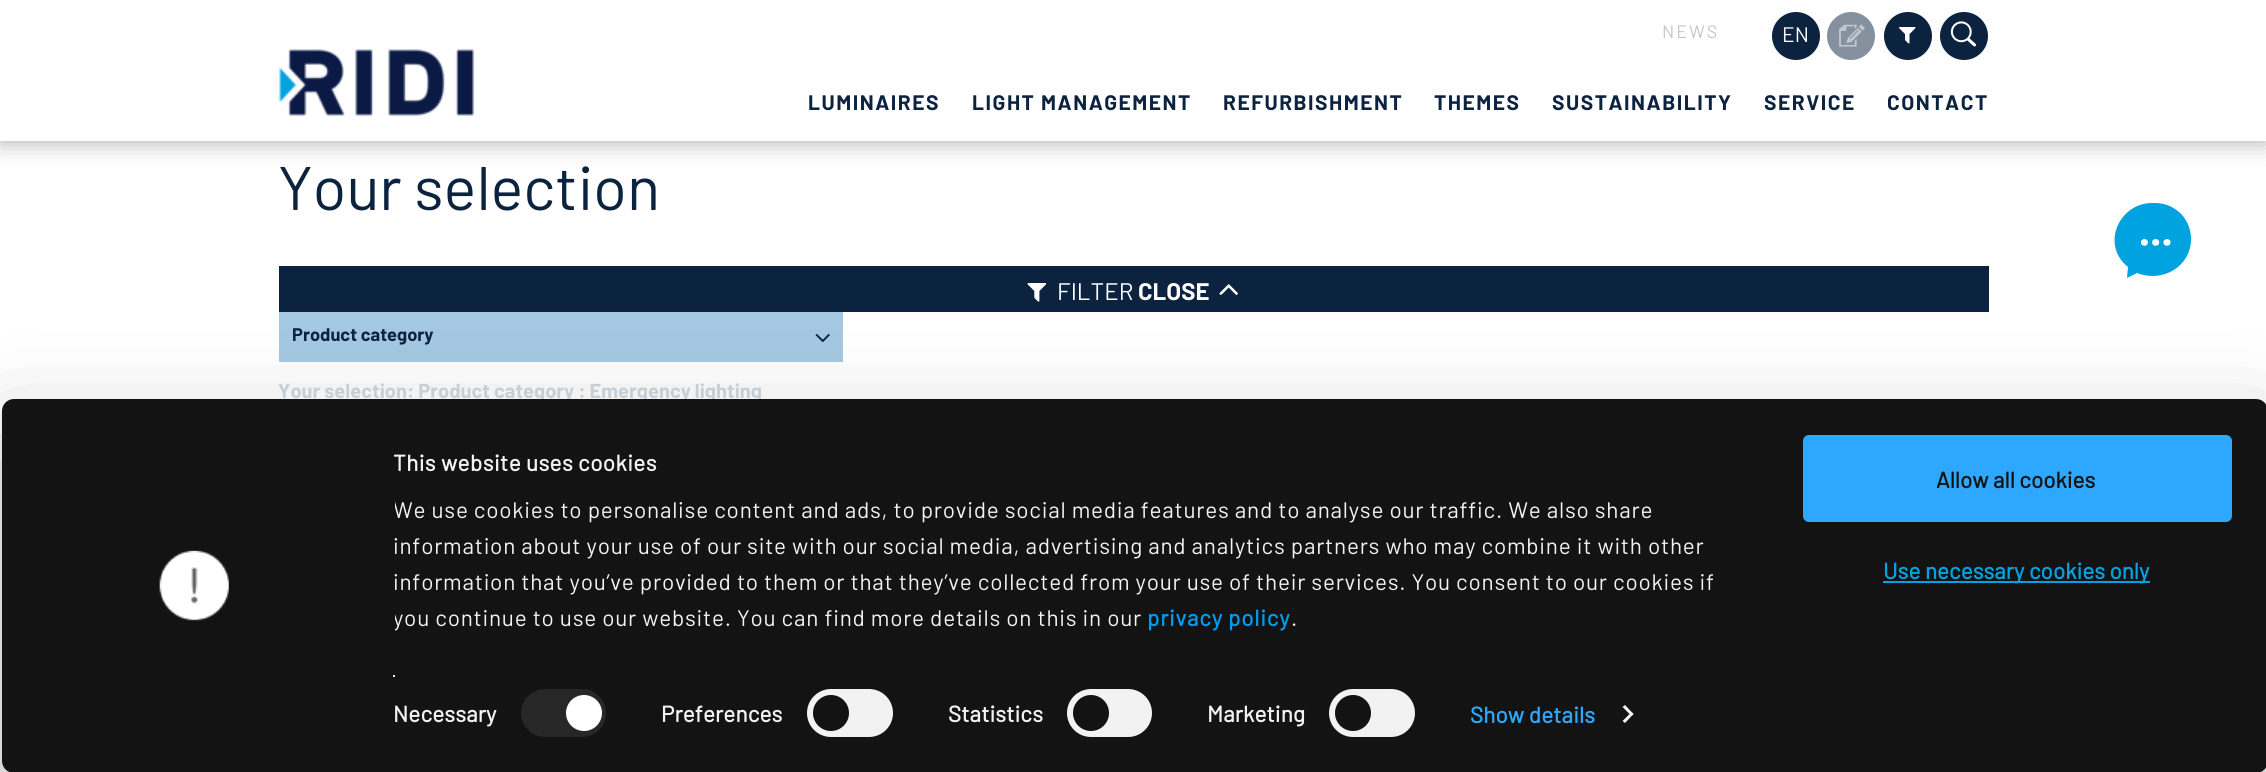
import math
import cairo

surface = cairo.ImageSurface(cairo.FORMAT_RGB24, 2266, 772)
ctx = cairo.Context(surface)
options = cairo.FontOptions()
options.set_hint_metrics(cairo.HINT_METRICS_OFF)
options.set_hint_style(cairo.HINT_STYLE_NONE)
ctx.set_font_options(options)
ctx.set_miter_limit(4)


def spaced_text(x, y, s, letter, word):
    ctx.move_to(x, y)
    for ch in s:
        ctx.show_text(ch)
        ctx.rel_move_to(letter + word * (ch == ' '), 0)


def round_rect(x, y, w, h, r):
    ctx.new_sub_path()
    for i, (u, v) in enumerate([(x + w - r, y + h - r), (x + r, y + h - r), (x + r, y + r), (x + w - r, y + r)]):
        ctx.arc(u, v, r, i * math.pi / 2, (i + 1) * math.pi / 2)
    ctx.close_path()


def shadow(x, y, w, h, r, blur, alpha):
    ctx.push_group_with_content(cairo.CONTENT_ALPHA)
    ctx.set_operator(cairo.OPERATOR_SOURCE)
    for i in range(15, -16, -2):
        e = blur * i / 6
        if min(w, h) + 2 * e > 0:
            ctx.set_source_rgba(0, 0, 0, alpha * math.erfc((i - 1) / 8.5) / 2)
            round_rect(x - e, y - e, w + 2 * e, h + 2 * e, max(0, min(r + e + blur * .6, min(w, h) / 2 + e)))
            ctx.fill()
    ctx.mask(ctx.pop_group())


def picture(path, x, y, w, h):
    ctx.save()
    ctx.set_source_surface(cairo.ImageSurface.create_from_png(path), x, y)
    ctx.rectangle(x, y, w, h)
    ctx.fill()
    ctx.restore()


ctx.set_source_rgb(1, 1, 1)
ctx.paint()
ctx.set_source_rgb(0, 0, 0)
shadow(0, 0, 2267, 141, 0, 12, 0.35)
ctx.set_source_rgb(1, 1, 1)
ctx.rectangle(0, 0, 2266, 141)
ctx.fill()
picture("img1.png", 278, 49, 196, 67)
ctx.select_font_face("Barlow")
ctx.set_font_size(18)
ctx.set_source_rgb(0.773, 0.776, 0.776)
spaced_text(1662, 38, "NEWS", 2, 0)
ctx.set_source_rgb(0.047, 0.137, 0.251)
ctx.new_path()
ctx.arc(1796, 36, 24, 0, 2 * math.pi)
ctx.fill()
ctx.set_font_size(21)
ctx.set_source_rgb(1, 1, 1)
ctx.move_to(1782, 42)
ctx.show_text("EN")
ctx.set_source_rgb(0.525, 0.569, 0.627)
ctx.new_path()
ctx.arc(1851, 36, 24, 0, 2 * math.pi)
ctx.fill()
picture("img2.png", 1839, 24, 26, 23)
ctx.set_source_rgb(0.047, 0.137, 0.251)
ctx.arc(1908, 36, 24, 0, 2 * math.pi)
ctx.fill()
picture("img3.png", 1899, 27, 17, 17)
ctx.arc(1964, 36, 24, 0, 2 * math.pi)
ctx.fill()
picture("img4.png", 1950, 21, 26, 26)
ctx.select_font_face("Barlow", cairo.FONT_SLANT_NORMAL, cairo.FONT_WEIGHT_BOLD)
spaced_text(808, 110, "LUMINAIRES", 1.5, 0)
spaced_text(972, 110, "LIGHT MANAGEMENT", 1.5, 0)
spaced_text(1223, 110, "REFURBISHMENT", 1.5, 0)
spaced_text(1434, 110, "THEMES", 1.5, 0)
spaced_text(1552, 110, "SUSTAINABILITY", 1.5, 0)
spaced_text(1764, 110, "SERVICE", 1.5, 0)
spaced_text(1887, 110, "CONTACT", 1.5, 0)
ctx.select_font_face("Barlow")
ctx.set_font_size(61.5)
ctx.move_to(278, 210)
ctx.show_text("Your selection")
ctx.rectangle(279, 266, 1710, 46)
ctx.fill()
picture("img5.png", 1027, 283, 20, 19)
ctx.set_font_size(24)
ctx.set_source_rgb(1, 1, 1)
ctx.move_to(1057, 300)
ctx.show_text("FILTER")
ctx.select_font_face("Barlow", cairo.FONT_SLANT_NORMAL, cairo.FONT_WEIGHT_BOLD)
ctx.move_to(1138, 300)
ctx.show_text("CLOSE")
picture("img6.png", 1219, 284, 19, 11)
ctx.set_source_rgb(0.643, 0.784, 0.882)
ctx.rectangle(279, 312, 564, 50)
ctx.fill()
ctx.set_font_size(18.25)
ctx.set_source_rgb(0.047, 0.137, 0.251)
ctx.move_to(292, 341)
ctx.show_text("Product category")
picture("img7.png", 815, 333, 15, 10)
ctx.set_font_size(20.1)
ctx.set_source_rgb(0.812, 0.851, 0.875)
ctx.move_to(278, 398)
ctx.show_text("Your selection: Product category : Emergency lighting")
ctx.set_source_rgb(0, 0.639, 0.878)
ctx.new_path()
ctx.move_to(2191, 239)
ctx.curve_to(2191, 229, 2187, 219, 2179, 212)
ctx.curve_to(2172, 206, 2164, 203, 2155, 203)
ctx.curve_to(2119, 201, 2100, 245, 2128, 267)
ctx.line_to(2127, 278)
ctx.line_to(2137, 273)
ctx.curve_to(2162, 283, 2191, 267, 2191, 239)
ctx.close_path()
ctx.fill()
picture("img8.png", 2140, 239, 31, 7)
ctx.save()
ctx.set_fill_rule(cairo.FILL_RULE_EVEN_ODD)
ctx.new_path()
ctx.move_to(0, 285)
ctx.line_to(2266, 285)
ctx.line_to(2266, 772)
ctx.line_to(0, 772)
ctx.close_path()
ctx.move_to(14, 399)
ctx.line_to(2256, 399)
ctx.curve_to(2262.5, 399, 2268, 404.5, 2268, 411)
ctx.line_to(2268, 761)
ctx.curve_to(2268, 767.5, 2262.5, 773, 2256, 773)
ctx.line_to(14, 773)
ctx.curve_to(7.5, 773, 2, 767.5, 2, 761)
ctx.line_to(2, 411)
ctx.curve_to(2, 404.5, 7.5, 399, 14, 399)
ctx.close_path()
ctx.clip()
ctx.set_source_rgb(0, 0, 0)
shadow(2, 444, 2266, 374, 12, 52.5, 0.3)
ctx.restore()
ctx.set_source_rgb(0.078, 0.078, 0.078)
round_rect(2, 399, 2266, 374, 12)
ctx.fill()
picture("img9.png", 159, 550, 70, 71)
ctx.select_font_face("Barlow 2", cairo.FONT_SLANT_NORMAL, cairo.FONT_WEIGHT_BOLD)
ctx.set_font_size(22.5)
ctx.set_source_rgb(0.949, 0.949, 0.949)
spaced_text(393, 471, "This website uses cookies", 0.4, 0)
ctx.save()
ctx.rectangle(395, 444, 1365, 191)
ctx.clip()
ctx.select_font_face("Barlow")
spaced_text(393, 518, "We use cookies to personalise content and ads, to provide social media features and to analyse our traffic. We also share", 0.75, 0)
ctx.restore()
ctx.select_font_face("Barlow")
spaced_text(393, 554, "information about your use of our site with our social media, advertising and analytics partners who may combine it with other", 0.75, 0)
spaced_text(393, 590, "information that you’ve provided to them or that they’ve collected from your use of their services. You consent to our cookies if", 0.75, 0)
ctx.save()
ctx.rectangle(395, 444, 1365, 191)
ctx.clip()
spaced_text(393, 626, "you continue to use our website. You can find more details on this in our", 0.75, 0)
ctx.restore()
ctx.select_font_face("Barlow 2", cairo.FONT_SLANT_NORMAL, cairo.FONT_WEIGHT_BOLD)
ctx.set_source_rgb(0, 0.604, 0.933)
spaced_text(1147, 626, "privacy policy", 0.75, 0)
ctx.select_font_face("Barlow")
ctx.set_source_rgb(0.949, 0.949, 0.949)
spaced_text(1291, 626, ".", 0.75, 0)
ctx.set_source_rgb(0.898, 0.898, 0.898)
ctx.rectangle(393, 675, 2, 2)
ctx.fill()
ctx.select_font_face("Barlow 2", cairo.FONT_SLANT_NORMAL, cairo.FONT_WEIGHT_BOLD)
ctx.set_source_rgb(0.949, 0.949, 0.949)
spaced_text(393, 722, "Necessary", 0.1, 0)
ctx.set_source_rgb(0.153, 0.153, 0.153)
round_rect(521, 689, 85, 48, 24)
ctx.fill()
ctx.set_source_rgb(1, 1, 1)
ctx.arc(584, 713, 18, 0, 2 * math.pi)
ctx.fill()
ctx.set_source_rgb(0.949, 0.949, 0.949)
spaced_text(661, 722, "Preferences", 0.1, 0)
round_rect(807, 689, 86, 48, 24)
ctx.fill()
ctx.set_source_rgb(0.078, 0.078, 0.078)
ctx.arc(831, 713, 18, 0, 2 * math.pi)
ctx.fill()
ctx.set_source_rgb(0.949, 0.949, 0.949)
spaced_text(948, 722, "Statistics", 0.1, 0)
round_rect(1067, 689, 85, 48, 24)
ctx.fill()
ctx.set_source_rgb(0.078, 0.078, 0.078)
ctx.arc(1091, 713, 18, 0, 2 * math.pi)
ctx.fill()
ctx.set_source_rgb(0.949, 0.949, 0.949)
spaced_text(1207, 722, "Marketing", 0.1, 0)
round_rect(1329, 689, 86, 48, 24)
ctx.fill()
ctx.set_source_rgb(0.078, 0.078, 0.078)
ctx.arc(1353, 713, 18, 0, 2 * math.pi)
ctx.fill()
ctx.set_source_rgb(0.18, 0.655, 1)
spaced_text(1470, 723, "Show details", 0.1, 0)
ctx.set_source_rgb(0.949, 0.949, 0.949)
ctx.new_path()
ctx.move_to(1625, 705)
ctx.line_to(1633.5, 714)
ctx.line_to(1631.5, 716)
ctx.line_to(1622.5, 707)
ctx.close_path()
ctx.fill()
ctx.new_path()
ctx.move_to(1631.5, 712)
ctx.line_to(1633.5, 714)
ctx.line_to(1625, 723)
ctx.line_to(1622.5, 721)
ctx.close_path()
ctx.fill()
ctx.set_source_rgb(0.18, 0.655, 1)
round_rect(1804.5, 436.5, 426, 84, 4.5)
ctx.fill_preserve()
ctx.set_line_width(3)
ctx.stroke()
ctx.set_source_rgb(0.078, 0.078, 0.078)
ctx.move_to(1936, 488)
ctx.show_text("Allow all cookies")
ctx.set_source_rgb(0, 0.639, 0.878)
ctx.rectangle(1883, 581, 267, 2)
ctx.fill()
ctx.move_to(1883, 579)
ctx.show_text("Use necessary cookies only")
surface.write_to_png("page.png")
